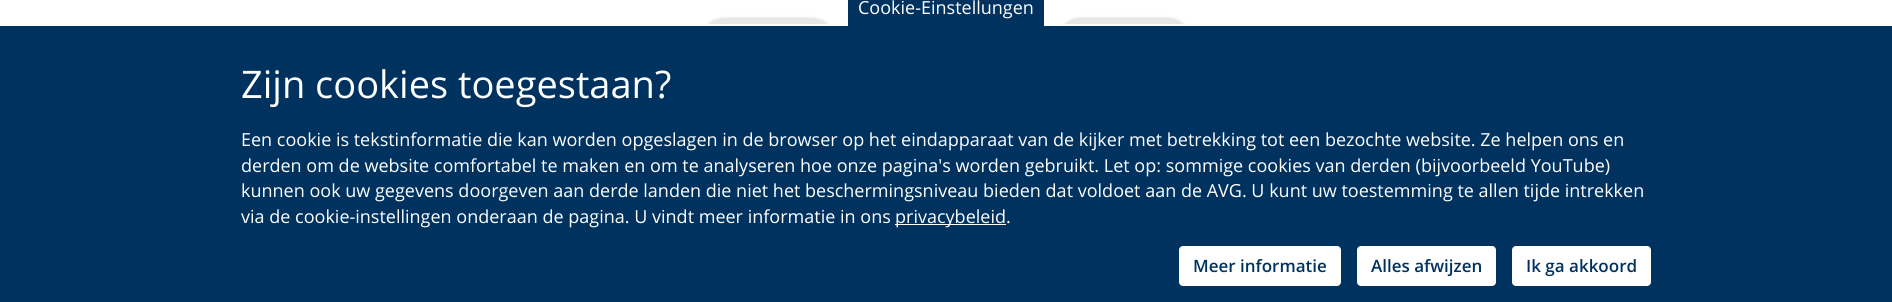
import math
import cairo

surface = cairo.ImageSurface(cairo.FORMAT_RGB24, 1892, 302)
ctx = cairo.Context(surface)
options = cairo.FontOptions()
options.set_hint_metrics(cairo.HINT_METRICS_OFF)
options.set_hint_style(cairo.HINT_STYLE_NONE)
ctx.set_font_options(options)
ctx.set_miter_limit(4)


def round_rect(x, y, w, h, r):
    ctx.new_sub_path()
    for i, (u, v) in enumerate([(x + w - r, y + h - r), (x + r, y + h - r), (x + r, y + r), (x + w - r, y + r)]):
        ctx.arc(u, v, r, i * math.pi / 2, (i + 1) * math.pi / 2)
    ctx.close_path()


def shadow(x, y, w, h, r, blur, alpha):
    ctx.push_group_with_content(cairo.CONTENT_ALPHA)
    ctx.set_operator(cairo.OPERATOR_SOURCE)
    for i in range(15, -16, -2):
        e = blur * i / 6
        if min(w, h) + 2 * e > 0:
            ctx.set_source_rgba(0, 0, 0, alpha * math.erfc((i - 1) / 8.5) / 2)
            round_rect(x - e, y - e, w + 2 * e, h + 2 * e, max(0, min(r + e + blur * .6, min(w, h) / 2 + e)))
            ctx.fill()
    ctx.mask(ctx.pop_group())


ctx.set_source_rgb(1, 1, 1)
ctx.paint()
ctx.save()
ctx.set_fill_rule(cairo.FILL_RULE_EVEN_ODD)
ctx.new_path()
ctx.move_to(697, 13)
ctx.line_to(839, 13)
ctx.line_to(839, 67)
ctx.line_to(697, 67)
ctx.close_path()
ctx.move_to(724, 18)
ctx.line_to(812, 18)
ctx.curve_to(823, 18, 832, 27, 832, 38)
ctx.curve_to(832, 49, 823, 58, 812, 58)
ctx.line_to(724, 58)
ctx.curve_to(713, 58, 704, 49, 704, 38)
ctx.curve_to(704, 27, 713, 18, 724, 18)
ctx.close_path()
ctx.clip()
ctx.set_source_rgb(0, 0, 0)
shadow(704, 20, 128, 40, 20, 2, 0.5)
ctx.restore()
ctx.set_source_rgb(0.906, 0.906, 0.91)
round_rect(704, 18, 128, 40, 20)
ctx.fill()
ctx.set_source_rgb(0, 0, 0)
shadow(842, 20, 208, 40, 20, 2, 0.5)
ctx.save()
ctx.set_fill_rule(cairo.FILL_RULE_EVEN_ODD)
ctx.new_path()
ctx.move_to(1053, 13)
ctx.line_to(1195, 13)
ctx.line_to(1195, 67)
ctx.line_to(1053, 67)
ctx.close_path()
ctx.move_to(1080, 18)
ctx.line_to(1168, 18)
ctx.curve_to(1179, 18, 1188, 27, 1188, 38)
ctx.curve_to(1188, 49, 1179, 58, 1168, 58)
ctx.line_to(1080, 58)
ctx.curve_to(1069, 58, 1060, 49, 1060, 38)
ctx.curve_to(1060, 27, 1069, 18, 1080, 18)
ctx.close_path()
ctx.clip()
shadow(1060, 20, 128, 40, 20, 2, 0.5)
ctx.restore()
ctx.set_source_rgb(0.906, 0.906, 0.91)
round_rect(1060, 18, 128, 40, 20)
ctx.fill()
ctx.set_source_rgb(0, 0.196, 0.373)
ctx.rectangle(0, 26, 1892, 276)
ctx.fill()
ctx.set_source_rgb(1, 1, 1)
ctx.rectangle(705, 24, 482, 2)
ctx.fill()
ctx.set_source_rgb(0, 0.196, 0.373)
ctx.rectangle(848, 0, 196, 26)
ctx.fill()
ctx.set_source_rgb(1, 1, 1)
ctx.rectangle(1044, 21, 2, 5)
ctx.fill()
ctx.rectangle(846, 21, 2, 5)
ctx.fill()
ctx.select_font_face("Open Sans")
ctx.set_font_size(18)
ctx.move_to(858, 14)
ctx.show_text("Cookie-Einstellungen")
ctx.set_font_size(38)
ctx.move_to(241, 98)
ctx.show_text("Zijn cookies toegestaan?")
ctx.set_font_size(18)
ctx.move_to(241, 146)
ctx.show_text("Een cookie is tekstinformatie die kan worden opgeslagen in de browser op het eindapparaat van de kijker met betrekking tot een bezochte website. Ze helpen ons en")
ctx.move_to(241, 172)
ctx.show_text("derden om de website comfortabel te maken en om te analyseren hoe onze pagina's worden gebruikt. Let op: sommige cookies van derden (bijvoorbeeld YouTube)")
ctx.move_to(241, 197)
ctx.show_text("kunnen ook uw gegevens doorgeven aan derde landen die niet het beschermingsniveau bieden dat voldoet aan de AVG. U kunt uw toestemming te allen tijde intrekken")
ctx.move_to(241, 223)
ctx.show_text("via de cookie-instellingen onderaan de pagina. U vindt meer informatie in ons")
ctx.rectangle(895, 224, 111, 1)
ctx.fill()
ctx.move_to(895, 223)
ctx.show_text("privacybeleid.")
round_rect(1179, 246, 162, 40, 4)
ctx.fill()
ctx.select_font_face("Open Sans SemiBold")
ctx.set_font_size(17)
ctx.set_source_rgb(0, 0.196, 0.373)
ctx.move_to(1193, 272)
ctx.show_text("Meer informatie")
ctx.set_source_rgb(1, 1, 1)
round_rect(1357, 246, 139, 40, 4)
ctx.fill()
ctx.set_source_rgb(0, 0.196, 0.373)
ctx.move_to(1371, 272)
ctx.show_text("Alles afwijzen")
ctx.set_source_rgb(1, 1, 1)
round_rect(1512, 246, 139, 40, 4)
ctx.fill()
ctx.set_source_rgb(0, 0.196, 0.373)
ctx.move_to(1526, 272)
ctx.show_text("Ik ga akkoord")
surface.write_to_png("page.png")
